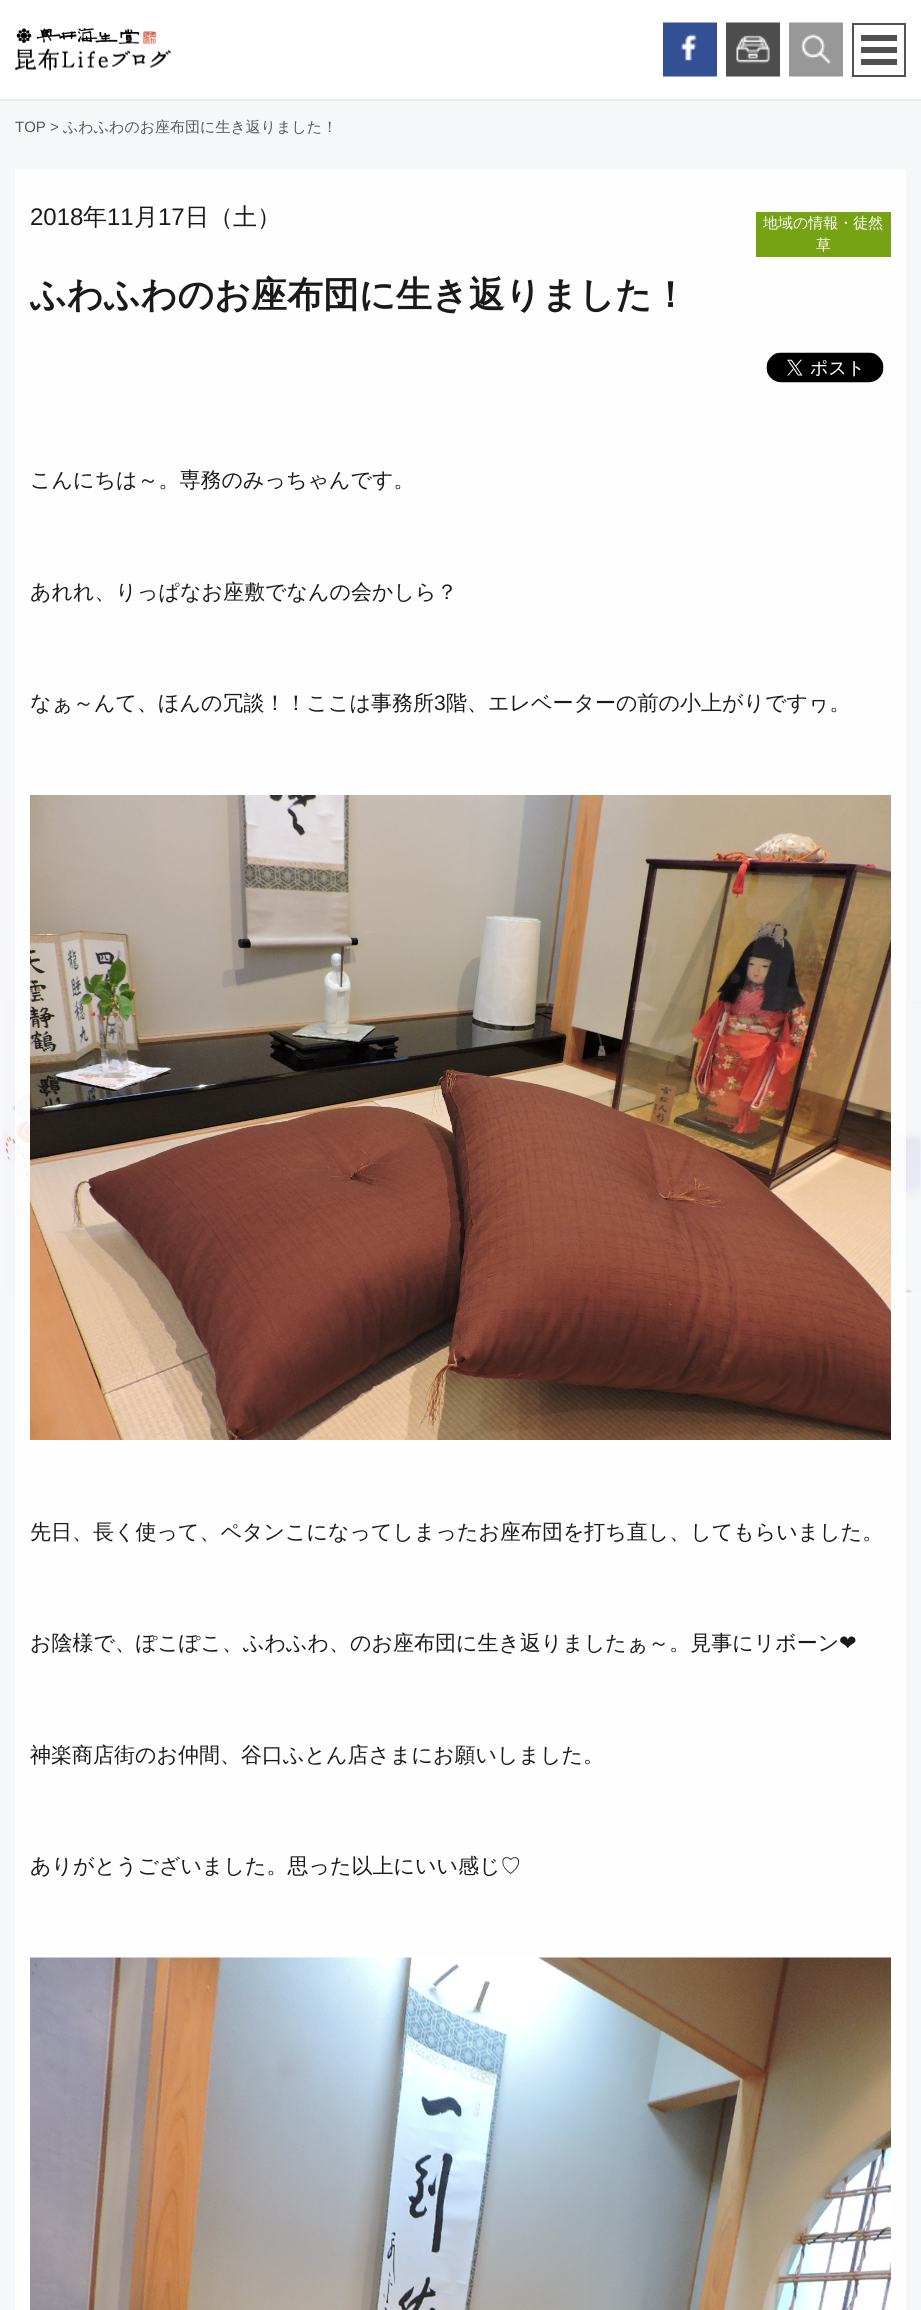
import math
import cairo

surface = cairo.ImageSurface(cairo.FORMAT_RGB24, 921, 2310)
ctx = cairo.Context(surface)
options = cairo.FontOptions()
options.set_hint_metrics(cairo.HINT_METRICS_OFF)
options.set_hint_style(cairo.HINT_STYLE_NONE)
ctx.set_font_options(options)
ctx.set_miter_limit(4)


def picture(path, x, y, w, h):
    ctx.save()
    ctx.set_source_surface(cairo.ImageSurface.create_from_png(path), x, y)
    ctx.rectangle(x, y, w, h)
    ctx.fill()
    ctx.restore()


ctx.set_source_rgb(0.961, 0.965, 0.969)
ctx.paint()
ctx.set_source_rgb(0.996, 0.996, 0.996)
ctx.rectangle(15, 169, 891, 2141)
ctx.fill()
picture("img1.png", 3, 1001, 918, 292)
ctx.set_source_rgb(1, 1, 1)
ctx.rectangle(0, 0, 921, 99)
ctx.fill()
ctx.set_source_rgb(0.922, 0.922, 0.922)
ctx.rectangle(0, 99, 921, 2)
ctx.fill()
picture("img2.png", 15, 28, 156, 43)
picture("img3.png", 663, 22, 54, 55)
picture("img4.png", 726, 22, 54, 55)
picture("img5.png", 789, 22, 54, 55)
ctx.rectangle(853, 24, 52, 52)
ctx.set_source_rgb(0.318, 0.318, 0.318)
ctx.stroke()
ctx.rectangle(861, 35, 36, 6)
ctx.fill()
ctx.rectangle(861, 47, 36, 6)
ctx.fill()
ctx.rectangle(861, 59, 36, 6)
ctx.fill()
ctx.select_font_face("Liberation Sans")
ctx.set_font_size(15)
ctx.set_source_rgb(0.349, 0.341, 0.341)
ctx.move_to(15, 132)
ctx.show_text("TOP >")
ctx.select_font_face("WenQuanYi Zen Hei Medium")
ctx.move_to(63, 132)
ctx.show_text("ふわふわのお座布団に生き返りました！")
ctx.select_font_face("Liberation Sans")
ctx.set_font_size(24)
ctx.set_source_rgb(0.102, 0.102, 0.102)
ctx.move_to(30, 225)
ctx.show_text("2018")
ctx.select_font_face("WenQuanYi Zen Hei Medium")
ctx.move_to(83, 225)
ctx.show_text("年")
ctx.select_font_face("Liberation Sans")
ctx.move_to(107, 225)
ctx.show_text("11")
ctx.select_font_face("WenQuanYi Zen Hei Medium")
ctx.move_to(134, 225)
ctx.show_text("月")
ctx.select_font_face("Liberation Sans")
ctx.move_to(158, 225)
ctx.show_text("17")
ctx.select_font_face("WenQuanYi Zen Hei Medium")
ctx.move_to(185, 225)
ctx.show_text("日（土）")
ctx.set_source_rgb(0.463, 0.639, 0.082)
ctx.rectangle(756, 212, 135, 45)
ctx.fill()
ctx.set_font_size(15)
ctx.set_source_rgb(1, 1, 1)
ctx.move_to(763, 228)
ctx.show_text("地域の情報・徒然")
ctx.move_to(816, 250)
ctx.show_text("草")
ctx.select_font_face("WenQuanYi Zen Hei", cairo.FONT_SLANT_NORMAL, cairo.FONT_WEIGHT_BOLD)
ctx.set_font_size(36)
ctx.set_source_rgb(0.102, 0.102, 0.102)
ctx.move_to(30, 307)
ctx.show_text("ふわふわのお座布団に生き返りました！")
picture("img6.png", 766, 352, 118, 31)
ctx.select_font_face("WenQuanYi Zen Hei Medium")
ctx.set_font_size(21)
ctx.move_to(30, 487)
ctx.show_text("こんにちは～。専務のみっちゃんです。")
ctx.move_to(30, 599)
ctx.show_text("あれれ、りっぱなお座敷でなんの会かしら？")
ctx.move_to(30, 710)
ctx.show_text("なぁ～んて、ほんの冗談！！ここは事務所")
ctx.select_font_face("Liberation Sans")
ctx.move_to(434, 710)
ctx.show_text("3")
ctx.select_font_face("WenQuanYi Zen Hei Medium")
ctx.move_to(446, 710)
ctx.show_text("階、エレベーターの前の小上がりですヮ。")
picture("img7.png", 30, 795, 861, 645)
ctx.move_to(30, 1539)
ctx.show_text("先日、長く使って、ペタンこになってしまったお座布団を打ち直し、してもらいました。")
ctx.move_to(30, 1650)
ctx.show_text("お陰様で、ぽこぽこ、ふわふわ、のお座布団に生き返りましたぁ～。見事にリボーン")
ctx.select_font_face("DejaVu Sans")
ctx.move_to(839, 1650)
ctx.show_text("❤")
ctx.select_font_face("WenQuanYi Zen Hei Medium")
ctx.move_to(30, 1762)
ctx.show_text("神楽商店街のお仲間、谷口ふとん店さまにお願いしました。")
ctx.move_to(30, 1873)
ctx.show_text("ありがとうございました。思った以上にいい感じ♡")
picture("img8.png", 30, 1957, 861, 353)
surface.write_to_png("page.png")
